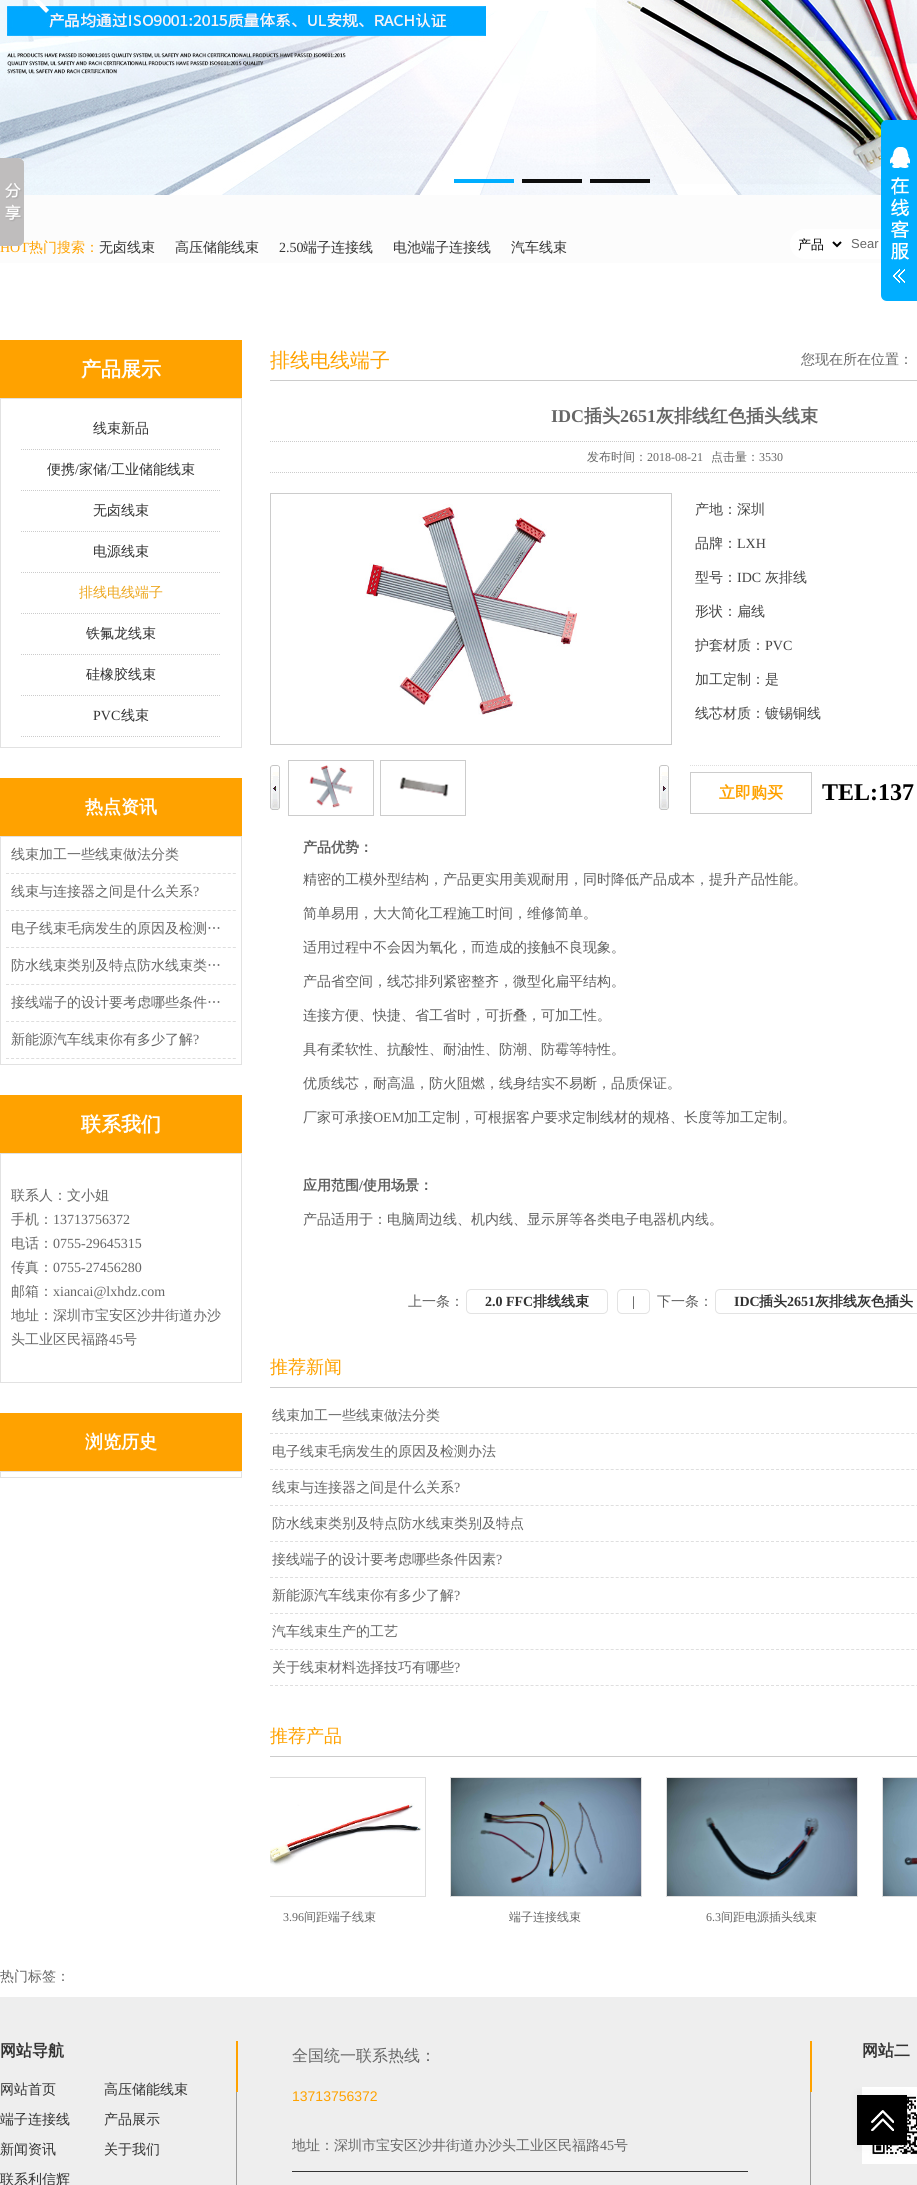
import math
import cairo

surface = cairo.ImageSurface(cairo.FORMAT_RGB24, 917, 2185)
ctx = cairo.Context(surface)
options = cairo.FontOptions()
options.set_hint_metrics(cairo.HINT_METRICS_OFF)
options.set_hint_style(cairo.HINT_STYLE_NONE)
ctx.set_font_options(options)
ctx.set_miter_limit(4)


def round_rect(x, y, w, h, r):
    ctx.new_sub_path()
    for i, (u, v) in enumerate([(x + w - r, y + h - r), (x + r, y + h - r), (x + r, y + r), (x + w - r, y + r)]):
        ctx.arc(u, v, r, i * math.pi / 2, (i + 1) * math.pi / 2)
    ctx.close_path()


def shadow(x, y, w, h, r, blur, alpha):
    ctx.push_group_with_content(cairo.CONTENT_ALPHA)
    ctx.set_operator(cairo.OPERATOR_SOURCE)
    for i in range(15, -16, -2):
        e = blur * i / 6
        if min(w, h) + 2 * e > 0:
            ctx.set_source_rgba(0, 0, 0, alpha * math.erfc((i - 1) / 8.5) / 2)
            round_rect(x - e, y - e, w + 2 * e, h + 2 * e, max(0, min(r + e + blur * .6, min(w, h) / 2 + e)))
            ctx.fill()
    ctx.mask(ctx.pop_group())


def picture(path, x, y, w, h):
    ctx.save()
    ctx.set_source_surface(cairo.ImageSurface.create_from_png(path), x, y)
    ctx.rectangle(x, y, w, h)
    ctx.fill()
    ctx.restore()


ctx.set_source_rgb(1, 1, 1)
ctx.paint()
picture("img1.png", 0, 0, 917, 195)
picture("img2.png", 34, 0, 15, 13)
ctx.set_source_rgb(0, 0.682, 1)
ctx.rectangle(454, 179, 60, 4)
ctx.fill()
ctx.set_source_rgb(0.051, 0.051, 0.051)
ctx.rectangle(522, 179, 60, 4)
ctx.fill()
ctx.rectangle(590, 179, 60, 4)
ctx.fill()
ctx.set_source_rgb(0.988, 0.988, 0.988)
ctx.rectangle(0, 195, 881, 68)
ctx.fill()
ctx.select_font_face("Liberation Serif")
ctx.set_font_size(14)
ctx.set_source_rgb(1, 0.635, 0)
ctx.move_to(0, 252)
ctx.show_text("HOT")
picture("img3.png", 0, 158, 24, 88)
ctx.set_source_rgb(1, 1, 1)
round_rect(790, 229, 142, 30, 15)
ctx.fill()
ctx.set_source_rgb(0, 0.682, 1)
ctx.new_path()
ctx.move_to(887, 120)
ctx.line_to(917, 120)
ctx.line_to(917, 301)
ctx.line_to(887, 301)
ctx.curve_to(883.5, 301, 881, 298.5, 881, 295)
ctx.line_to(881, 126)
ctx.curve_to(881, 122.5, 883.5, 120, 887, 120)
ctx.close_path()
ctx.fill()
picture("img4.png", 890, 147, 20, 136)
ctx.select_font_face("WenQuanYi Zen Hei Medium")
ctx.set_source_rgb(1, 0.635, 0)
ctx.move_to(29, 252)
ctx.show_text("热门搜索：")
ctx.set_source_rgb(0.2, 0.2, 0.2)
ctx.move_to(99, 252)
ctx.show_text("无卤线束")
ctx.move_to(175, 252)
ctx.show_text("高压储能线束")
ctx.select_font_face("Liberation Serif")
ctx.move_to(279, 252)
ctx.show_text("2.50")
ctx.select_font_face("WenQuanYi Zen Hei Medium")
ctx.move_to(303, 252)
ctx.show_text("端子连接线")
ctx.move_to(393, 252)
ctx.show_text("电池端子连接线")
ctx.move_to(511, 252)
ctx.show_text("汽车线束")
ctx.new_path()
ctx.move_to(833, 242)
ctx.line_to(837, 246)
ctx.line_to(841, 242)
ctx.set_source_rgb(0, 0, 0)
ctx.stroke()
ctx.set_font_size(13)
ctx.move_to(798, 249)
ctx.show_text("产品")
ctx.select_font_face("Liberation Sans")
ctx.set_source_rgb(0.4, 0.4, 0.4)
ctx.move_to(851, 248)
ctx.show_text("Sear")
ctx.set_source_rgb(1, 0.635, 0)
ctx.rectangle(0, 340, 242, 58)
ctx.fill()
ctx.select_font_face("WenQuanYi Zen Hei", cairo.FONT_SLANT_NORMAL, cairo.FONT_WEIGHT_BOLD)
ctx.set_font_size(20)
ctx.set_source_rgb(1, 1, 1)
ctx.move_to(81, 376)
ctx.show_text("产品展示")
ctx.rectangle(0.5, 398.5, 241, 349)
ctx.set_source_rgb(0.886, 0.886, 0.886)
ctx.set_line_width(1)
ctx.stroke()
ctx.new_path()
ctx.move_to(21, 449.5)
ctx.line_to(221, 449.5)
ctx.set_source_rgb(0.8, 0.8, 0.8)
ctx.set_dash([1, 1])
ctx.stroke()
ctx.select_font_face("WenQuanYi Zen Hei Medium")
ctx.set_font_size(14)
ctx.set_source_rgb(0.2, 0.2, 0.2)
ctx.move_to(93, 433)
ctx.show_text("线束新品")
ctx.new_path()
ctx.move_to(21, 490.5)
ctx.line_to(221, 490.5)
ctx.set_source_rgb(0.8, 0.8, 0.8)
ctx.stroke()
ctx.set_source_rgb(0.2, 0.2, 0.2)
ctx.move_to(47, 474)
ctx.show_text("便携")
ctx.select_font_face("Liberation Serif")
ctx.move_to(75, 474)
ctx.show_text("/")
ctx.select_font_face("WenQuanYi Zen Hei Medium")
ctx.move_to(79, 474)
ctx.show_text("家储")
ctx.select_font_face("Liberation Serif")
ctx.move_to(107, 474)
ctx.show_text("/")
ctx.select_font_face("WenQuanYi Zen Hei Medium")
ctx.move_to(111, 474)
ctx.show_text("工业储能线束")
ctx.new_path()
ctx.move_to(21, 531.5)
ctx.line_to(221, 531.5)
ctx.set_source_rgb(0.8, 0.8, 0.8)
ctx.stroke()
ctx.set_source_rgb(0.2, 0.2, 0.2)
ctx.move_to(93, 515)
ctx.show_text("无卤线束")
ctx.new_path()
ctx.move_to(21, 572.5)
ctx.line_to(221, 572.5)
ctx.set_source_rgb(0.8, 0.8, 0.8)
ctx.stroke()
ctx.set_source_rgb(0.2, 0.2, 0.2)
ctx.move_to(93, 556)
ctx.show_text("电源线束")
ctx.new_path()
ctx.move_to(21, 613.5)
ctx.line_to(221, 613.5)
ctx.set_source_rgb(0.8, 0.8, 0.8)
ctx.stroke()
ctx.set_source_rgb(0.929, 0.655, 0.122)
ctx.move_to(79, 597)
ctx.show_text("排线电线端子")
ctx.new_path()
ctx.move_to(21, 654.5)
ctx.line_to(221, 654.5)
ctx.set_source_rgb(0.8, 0.8, 0.8)
ctx.stroke()
ctx.set_source_rgb(0.2, 0.2, 0.2)
ctx.move_to(86, 638)
ctx.show_text("铁氟龙线束")
ctx.new_path()
ctx.move_to(21, 695.5)
ctx.line_to(221, 695.5)
ctx.set_source_rgb(0.8, 0.8, 0.8)
ctx.stroke()
ctx.set_source_rgb(0.2, 0.2, 0.2)
ctx.move_to(86, 679)
ctx.show_text("硅橡胶线束")
ctx.new_path()
ctx.move_to(21, 736.5)
ctx.line_to(221, 736.5)
ctx.set_source_rgb(0.8, 0.8, 0.8)
ctx.stroke()
ctx.select_font_face("Liberation Serif")
ctx.set_source_rgb(0.2, 0.2, 0.2)
ctx.move_to(93, 720)
ctx.show_text("PVC")
ctx.select_font_face("WenQuanYi Zen Hei Medium")
ctx.move_to(121, 720)
ctx.show_text("线束")
ctx.set_source_rgb(1, 0.635, 0)
ctx.rectangle(0, 778, 242, 58)
ctx.fill()
ctx.select_font_face("WenQuanYi Zen Hei", cairo.FONT_SLANT_NORMAL, cairo.FONT_WEIGHT_BOLD)
ctx.set_font_size(18)
ctx.set_source_rgb(1, 1, 1)
ctx.move_to(85, 813)
ctx.show_text("热点资讯")
ctx.rectangle(0.5, 836.5, 241, 228)
ctx.set_source_rgb(0.886, 0.886, 0.886)
ctx.set_dash([])
ctx.stroke()
ctx.new_path()
ctx.move_to(6, 873.5)
ctx.line_to(236, 873.5)
ctx.set_source_rgb(0.871, 0.871, 0.871)
ctx.set_dash([3, 2.04])
ctx.stroke()
ctx.select_font_face("WenQuanYi Zen Hei Medium")
ctx.set_font_size(14)
ctx.set_source_rgb(0.4, 0.4, 0.4)
ctx.move_to(11, 859)
ctx.show_text("线束加工一些线束做法分类")
ctx.new_path()
ctx.move_to(6, 910.5)
ctx.line_to(236, 910.5)
ctx.set_source_rgb(0.871, 0.871, 0.871)
ctx.stroke()
ctx.set_source_rgb(0.4, 0.4, 0.4)
ctx.move_to(11, 896)
ctx.show_text("线束与连接器之间是什么关系")
ctx.select_font_face("Liberation Serif")
ctx.move_to(193, 896)
ctx.show_text("?")
ctx.new_path()
ctx.move_to(6, 947.5)
ctx.line_to(236, 947.5)
ctx.set_source_rgb(0.871, 0.871, 0.871)
ctx.stroke()
ctx.select_font_face("WenQuanYi Zen Hei Medium")
ctx.set_source_rgb(0.4, 0.4, 0.4)
ctx.move_to(11, 933)
ctx.show_text("电子线束毛病发生的原因及检测…")
ctx.new_path()
ctx.move_to(6, 984.5)
ctx.line_to(236, 984.5)
ctx.set_source_rgb(0.871, 0.871, 0.871)
ctx.stroke()
ctx.set_source_rgb(0.4, 0.4, 0.4)
ctx.move_to(11, 970)
ctx.show_text("防水线束类别及特点防水线束类…")
ctx.new_path()
ctx.move_to(6, 1021.5)
ctx.line_to(236, 1021.5)
ctx.set_source_rgb(0.871, 0.871, 0.871)
ctx.stroke()
ctx.set_source_rgb(0.4, 0.4, 0.4)
ctx.move_to(11, 1007)
ctx.show_text("接线端子的设计要考虑哪些条件…")
ctx.new_path()
ctx.move_to(6, 1058.5)
ctx.line_to(236, 1058.5)
ctx.set_source_rgb(0.871, 0.871, 0.871)
ctx.stroke()
ctx.set_source_rgb(0.4, 0.4, 0.4)
ctx.move_to(11, 1044)
ctx.show_text("新能源汽车线束你有多少了解")
ctx.select_font_face("Liberation Serif")
ctx.move_to(193, 1044)
ctx.show_text("?")
ctx.set_source_rgb(1, 0.635, 0)
ctx.rectangle(0, 1095, 242, 58)
ctx.fill()
ctx.select_font_face("WenQuanYi Zen Hei", cairo.FONT_SLANT_NORMAL, cairo.FONT_WEIGHT_BOLD)
ctx.set_font_size(20)
ctx.set_source_rgb(1, 1, 1)
ctx.move_to(81, 1131)
ctx.show_text("联系我们")
ctx.rectangle(0.5, 1153.5, 241, 229)
ctx.set_source_rgb(0.886, 0.886, 0.886)
ctx.set_dash([])
ctx.stroke()
ctx.select_font_face("WenQuanYi Zen Hei Medium")
ctx.set_font_size(14)
ctx.set_source_rgb(0.4, 0.4, 0.4)
ctx.move_to(11, 1200)
ctx.show_text("联系人：文小姐")
ctx.move_to(11, 1224)
ctx.show_text("手机：")
ctx.select_font_face("Liberation Serif")
ctx.move_to(53, 1224)
ctx.show_text("13713756372")
ctx.select_font_face("WenQuanYi Zen Hei Medium")
ctx.move_to(11, 1248)
ctx.show_text("电话：")
ctx.select_font_face("Liberation Serif")
ctx.move_to(53, 1248)
ctx.show_text("0755-29645315")
ctx.select_font_face("WenQuanYi Zen Hei Medium")
ctx.move_to(11, 1272)
ctx.show_text("传真：")
ctx.select_font_face("Liberation Serif")
ctx.move_to(53, 1272)
ctx.show_text("0755-27456280")
ctx.select_font_face("WenQuanYi Zen Hei Medium")
ctx.move_to(11, 1296)
ctx.show_text("邮箱：")
ctx.select_font_face("Liberation Serif")
ctx.move_to(53, 1296)
ctx.show_text("xiancai@lxhdz.com")
ctx.select_font_face("WenQuanYi Zen Hei Medium")
ctx.move_to(11, 1320)
ctx.show_text("地址：深圳市宝安区沙井街道办沙")
ctx.move_to(11, 1344)
ctx.show_text("头工业区民福路")
ctx.select_font_face("Liberation Serif")
ctx.move_to(109, 1344)
ctx.show_text("45")
ctx.select_font_face("WenQuanYi Zen Hei Medium")
ctx.move_to(123, 1344)
ctx.show_text("号")
ctx.set_source_rgb(1, 0.635, 0)
ctx.rectangle(0, 1413, 242, 58)
ctx.fill()
ctx.select_font_face("WenQuanYi Zen Hei", cairo.FONT_SLANT_NORMAL, cairo.FONT_WEIGHT_BOLD)
ctx.set_font_size(18)
ctx.set_source_rgb(1, 1, 1)
ctx.move_to(85, 1448)
ctx.show_text("浏览历史")
ctx.rectangle(0.5, 1471.5, 241, 6)
ctx.set_source_rgb(0.886, 0.886, 0.886)
ctx.stroke()
ctx.set_source_rgb(0.8, 0.8, 0.8)
ctx.rectangle(270, 380, 647, 1)
ctx.fill()
ctx.select_font_face("WenQuanYi Zen Hei Medium")
ctx.set_font_size(20)
ctx.set_source_rgb(1, 0.635, 0)
ctx.move_to(270, 367)
ctx.show_text("排线电线端子")
ctx.set_font_size(14)
ctx.set_source_rgb(0.4, 0.4, 0.4)
ctx.move_to(801, 364)
ctx.show_text("您现在所在位置：")
ctx.select_font_face("Liberation Serif", cairo.FONT_SLANT_NORMAL, cairo.FONT_WEIGHT_BOLD)
ctx.set_font_size(18)
ctx.move_to(551, 422)
ctx.show_text("IDC")
ctx.select_font_face("WenQuanYi Zen Hei", cairo.FONT_SLANT_NORMAL, cairo.FONT_WEIGHT_BOLD)
ctx.move_to(584, 422)
ctx.show_text("插头")
ctx.select_font_face("Liberation Serif", cairo.FONT_SLANT_NORMAL, cairo.FONT_WEIGHT_BOLD)
ctx.move_to(620, 422)
ctx.show_text("2651")
ctx.select_font_face("WenQuanYi Zen Hei", cairo.FONT_SLANT_NORMAL, cairo.FONT_WEIGHT_BOLD)
ctx.move_to(656, 422)
ctx.show_text("灰排线红色插头线束")
ctx.new_path()
ctx.move_to(270, 441.5)
ctx.line_to(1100, 441.5)
ctx.set_source_rgb(0.8, 0.8, 0.8)
ctx.set_dash([1, 1])
ctx.stroke()
ctx.new_path()
ctx.move_to(270, 472.5)
ctx.line_to(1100, 472.5)
ctx.stroke()
ctx.select_font_face("WenQuanYi Zen Hei Medium")
ctx.set_font_size(12)
ctx.set_source_rgb(0.4, 0.4, 0.4)
ctx.move_to(587, 461)
ctx.show_text("发布时间：")
ctx.select_font_face("Liberation Serif")
ctx.move_to(647, 461)
ctx.show_text("2018-08-21")
ctx.select_font_face("WenQuanYi Zen Hei Medium")
ctx.move_to(711, 461)
ctx.show_text("点击量：")
ctx.select_font_face("Liberation Serif")
ctx.move_to(759, 461)
ctx.show_text("3530")
ctx.rectangle(270.5, 493.5, 401, 251)
ctx.set_source_rgb(0.8, 0.8, 0.8)
ctx.set_dash([])
ctx.stroke()
picture("img5.png", 365, 504, 215, 211)
picture("img6.png", 270, 765, 10, 45)
ctx.rectangle(288.5, 760.5, 85, 55)
ctx.stroke()
picture("img7.png", 309, 765, 44, 43)
ctx.rectangle(380.5, 760.5, 85, 55)
ctx.stroke()
picture("img8.png", 399, 777, 50, 20)
picture("img9.png", 659, 765, 10, 45)
ctx.new_path()
ctx.move_to(690, 765.5)
ctx.line_to(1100, 765.5)
ctx.set_source_rgb(0.871, 0.871, 0.871)
ctx.set_dash([1, 1])
ctx.stroke()
ctx.select_font_face("WenQuanYi Zen Hei Medium")
ctx.set_font_size(14)
ctx.set_source_rgb(0.267, 0.267, 0.267)
ctx.move_to(695, 514)
ctx.show_text("产地：深圳")
ctx.move_to(695, 548)
ctx.show_text("品牌：")
ctx.select_font_face("Liberation Serif")
ctx.move_to(737, 548)
ctx.show_text("LXH")
ctx.select_font_face("WenQuanYi Zen Hei Medium")
ctx.move_to(695, 582)
ctx.show_text("型号：")
ctx.select_font_face("Liberation Serif")
ctx.move_to(737, 582)
ctx.show_text("IDC")
ctx.select_font_face("WenQuanYi Zen Hei Medium")
ctx.move_to(765, 582)
ctx.show_text("灰排线")
ctx.move_to(695, 616)
ctx.show_text("形状：扁线")
ctx.move_to(695, 650)
ctx.show_text("护套材质：")
ctx.select_font_face("Liberation Serif")
ctx.move_to(765, 650)
ctx.show_text("PVC")
ctx.select_font_face("WenQuanYi Zen Hei Medium")
ctx.move_to(695, 684)
ctx.show_text("加工定制：是")
ctx.move_to(695, 718)
ctx.show_text("线芯材质：镀锡铜线")
ctx.rectangle(690.5, 772.5, 121, 41)
ctx.set_source_rgb(0.8, 0.8, 0.8)
ctx.set_dash([])
ctx.stroke()
ctx.select_font_face("WenQuanYi Zen Hei", cairo.FONT_SLANT_NORMAL, cairo.FONT_WEIGHT_BOLD)
ctx.set_font_size(16)
ctx.set_source_rgb(1, 0.635, 0)
ctx.move_to(719, 798)
ctx.show_text("立即购买")
ctx.select_font_face("Liberation Serif", cairo.FONT_SLANT_NORMAL, cairo.FONT_WEIGHT_BOLD)
ctx.set_font_size(24)
ctx.set_source_rgb(0, 0, 0)
ctx.move_to(822, 800)
ctx.show_text("TEL:137")
ctx.select_font_face("WenQuanYi Zen Hei", cairo.FONT_SLANT_NORMAL, cairo.FONT_WEIGHT_BOLD)
ctx.set_font_size(14)
ctx.set_source_rgb(0.369, 0.369, 0.369)
ctx.move_to(303, 852)
ctx.show_text("产品优势：")
ctx.select_font_face("WenQuanYi Zen Hei Medium")
ctx.move_to(303, 884)
ctx.show_text("精密的工模外型结构，产品更实用美观耐用，同时降低产品成本，提升产品性能。")
ctx.move_to(303, 918)
ctx.show_text("简单易用，大大简化工程施工时间，维修简单。")
ctx.move_to(303, 952)
ctx.show_text("适用过程中不会因为氧化，而造成的接触不良现象。")
ctx.move_to(303, 986)
ctx.show_text("产品省空间，线芯排列紧密整齐，微型化扁平结构。")
ctx.move_to(303, 1020)
ctx.show_text("连接方便、快捷、省工省时，可折叠，可加工性。")
ctx.move_to(303, 1054)
ctx.show_text("具有柔软性、抗酸性、耐油性、防潮、防霉等特性。")
ctx.move_to(303, 1088)
ctx.show_text("优质线芯，耐高温，防火阻燃，线身结实不易断，品质保证。")
ctx.move_to(303, 1122)
ctx.show_text("厂家可承接")
ctx.select_font_face("Liberation Serif")
ctx.move_to(373, 1122)
ctx.show_text("OEM")
ctx.select_font_face("WenQuanYi Zen Hei Medium")
ctx.move_to(404, 1122)
ctx.show_text("加工定制，可根据客户要求定制线材的规格、长度等加工定制。")
ctx.select_font_face("WenQuanYi Zen Hei", cairo.FONT_SLANT_NORMAL, cairo.FONT_WEIGHT_BOLD)
ctx.move_to(303, 1190)
ctx.show_text("应用范围")
ctx.select_font_face("Liberation Serif", cairo.FONT_SLANT_NORMAL, cairo.FONT_WEIGHT_BOLD)
ctx.move_to(359, 1190)
ctx.show_text("/")
ctx.select_font_face("WenQuanYi Zen Hei", cairo.FONT_SLANT_NORMAL, cairo.FONT_WEIGHT_BOLD)
ctx.move_to(363, 1190)
ctx.show_text("使用场景：")
ctx.select_font_face("WenQuanYi Zen Hei Medium")
ctx.move_to(303, 1224)
ctx.show_text("产品适用于：电脑周边线、机内线、显示屏等各类电子电器机内线。")
ctx.move_to(408, 1306)
ctx.show_text("上一条：")
round_rect(466.5, 1289.5, 141, 24, 4.5)
ctx.set_source_rgb(0.89, 0.89, 0.89)
ctx.stroke()
ctx.select_font_face("Liberation Serif", cairo.FONT_SLANT_NORMAL, cairo.FONT_WEIGHT_BOLD)
ctx.set_source_rgb(0.2, 0.2, 0.2)
ctx.move_to(485, 1306)
ctx.show_text("2.0 FFC")
ctx.select_font_face("WenQuanYi Zen Hei", cairo.FONT_SLANT_NORMAL, cairo.FONT_WEIGHT_BOLD)
ctx.move_to(533, 1306)
ctx.show_text("排线线束")
round_rect(617.5, 1289.5, 32, 24, 4.5)
ctx.set_source_rgb(0.89, 0.89, 0.89)
ctx.stroke()
ctx.select_font_face("Liberation Serif")
ctx.set_source_rgb(0.2, 0.2, 0.2)
ctx.move_to(632, 1306)
ctx.show_text("|")
ctx.select_font_face("WenQuanYi Zen Hei Medium")
ctx.set_source_rgb(0.369, 0.369, 0.369)
ctx.move_to(657, 1306)
ctx.show_text("下一条：")
round_rect(715.5, 1289.5, 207, 24, 4.5)
ctx.set_source_rgb(0.89, 0.89, 0.89)
ctx.stroke()
ctx.select_font_face("Liberation Serif", cairo.FONT_SLANT_NORMAL, cairo.FONT_WEIGHT_BOLD)
ctx.set_source_rgb(0.2, 0.2, 0.2)
ctx.move_to(734, 1306)
ctx.show_text("IDC")
ctx.select_font_face("WenQuanYi Zen Hei", cairo.FONT_SLANT_NORMAL, cairo.FONT_WEIGHT_BOLD)
ctx.move_to(759, 1306)
ctx.show_text("插头")
ctx.select_font_face("Liberation Serif", cairo.FONT_SLANT_NORMAL, cairo.FONT_WEIGHT_BOLD)
ctx.move_to(787, 1306)
ctx.show_text("2651")
ctx.select_font_face("WenQuanYi Zen Hei", cairo.FONT_SLANT_NORMAL, cairo.FONT_WEIGHT_BOLD)
ctx.move_to(815, 1306)
ctx.show_text("灰排线灰色插头")
ctx.set_source_rgb(0.8, 0.8, 0.8)
ctx.rectangle(270, 1387, 647, 1)
ctx.fill()
ctx.select_font_face("WenQuanYi Zen Hei Medium")
ctx.set_font_size(18)
ctx.set_source_rgb(1, 0.635, 0)
ctx.move_to(270, 1373)
ctx.show_text("推荐新闻")
ctx.new_path()
ctx.move_to(270, 1433.5)
ctx.line_to(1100, 1433.5)
ctx.set_source_rgb(0.875, 0.875, 0.875)
ctx.set_dash([3, 2.01])
ctx.stroke()
ctx.set_font_size(14)
ctx.set_source_rgb(0.4, 0.4, 0.4)
ctx.move_to(272, 1420)
ctx.show_text("线束加工一些线束做法分类")
ctx.new_path()
ctx.move_to(270, 1469.5)
ctx.line_to(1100, 1469.5)
ctx.set_source_rgb(0.875, 0.875, 0.875)
ctx.stroke()
ctx.set_source_rgb(0.4, 0.4, 0.4)
ctx.move_to(272, 1456)
ctx.show_text("电子线束毛病发生的原因及检测办法")
ctx.new_path()
ctx.move_to(270, 1505.5)
ctx.line_to(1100, 1505.5)
ctx.set_source_rgb(0.875, 0.875, 0.875)
ctx.stroke()
ctx.set_source_rgb(0.4, 0.4, 0.4)
ctx.move_to(272, 1492)
ctx.show_text("线束与连接器之间是什么关系")
ctx.select_font_face("Liberation Serif")
ctx.move_to(454, 1492)
ctx.show_text("?")
ctx.new_path()
ctx.move_to(270, 1541.5)
ctx.line_to(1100, 1541.5)
ctx.set_source_rgb(0.875, 0.875, 0.875)
ctx.stroke()
ctx.select_font_face("WenQuanYi Zen Hei Medium")
ctx.set_source_rgb(0.4, 0.4, 0.4)
ctx.move_to(272, 1528)
ctx.show_text("防水线束类别及特点防水线束类别及特点")
ctx.new_path()
ctx.move_to(270, 1577.5)
ctx.line_to(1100, 1577.5)
ctx.set_source_rgb(0.875, 0.875, 0.875)
ctx.stroke()
ctx.set_source_rgb(0.4, 0.4, 0.4)
ctx.move_to(272, 1564)
ctx.show_text("接线端子的设计要考虑哪些条件因素")
ctx.select_font_face("Liberation Serif")
ctx.move_to(496, 1564)
ctx.show_text("?")
ctx.new_path()
ctx.move_to(270, 1613.5)
ctx.line_to(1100, 1613.5)
ctx.set_source_rgb(0.875, 0.875, 0.875)
ctx.stroke()
ctx.select_font_face("WenQuanYi Zen Hei Medium")
ctx.set_source_rgb(0.4, 0.4, 0.4)
ctx.move_to(272, 1600)
ctx.show_text("新能源汽车线束你有多少了解")
ctx.select_font_face("Liberation Serif")
ctx.move_to(454, 1600)
ctx.show_text("?")
ctx.new_path()
ctx.move_to(270, 1649.5)
ctx.line_to(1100, 1649.5)
ctx.set_source_rgb(0.875, 0.875, 0.875)
ctx.stroke()
ctx.select_font_face("WenQuanYi Zen Hei Medium")
ctx.set_source_rgb(0.4, 0.4, 0.4)
ctx.move_to(272, 1636)
ctx.show_text("汽车线束生产的工艺")
ctx.new_path()
ctx.move_to(270, 1685.5)
ctx.line_to(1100, 1685.5)
ctx.set_source_rgb(0.875, 0.875, 0.875)
ctx.stroke()
ctx.set_source_rgb(0.4, 0.4, 0.4)
ctx.move_to(272, 1672)
ctx.show_text("关于线束材料选择技巧有哪些")
ctx.select_font_face("Liberation Serif")
ctx.move_to(454, 1672)
ctx.show_text("?")
ctx.set_source_rgb(0.8, 0.8, 0.8)
ctx.rectangle(270, 1756, 647, 1)
ctx.fill()
ctx.select_font_face("WenQuanYi Zen Hei Medium")
ctx.set_font_size(18)
ctx.set_source_rgb(1, 0.635, 0)
ctx.move_to(270, 1742)
ctx.show_text("推荐产品")
ctx.rectangle(882.5, 1777.5, 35, 119)
ctx.set_source_rgb(0.871, 0.871, 0.871)
ctx.set_dash([])
ctx.stroke()
picture("img10.png", 883, 1778, 34, 118)
ctx.save()
ctx.rectangle(270, 1777, 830, 160)
ctx.clip()
ctx.rectangle(234.5, 1777.5, 191, 119)
ctx.stroke()
ctx.restore()
picture("img11.png", 270, 1803, 153, 63)
ctx.select_font_face("Liberation Serif")
ctx.set_font_size(12)
ctx.set_source_rgb(0.4, 0.4, 0.4)
ctx.move_to(283, 1921)
ctx.show_text("3.96")
ctx.select_font_face("WenQuanYi Zen Hei Medium")
ctx.move_to(304, 1921)
ctx.show_text("间距端子线束")
ctx.rectangle(450.5, 1777.5, 191, 119)
ctx.set_source_rgb(0.871, 0.871, 0.871)
ctx.stroke()
picture("img12.png", 451, 1778, 190, 118)
ctx.set_source_rgb(0.4, 0.4, 0.4)
ctx.move_to(509, 1921)
ctx.show_text("端子连接线束")
ctx.rectangle(666.5, 1777.5, 191, 119)
ctx.set_source_rgb(0.871, 0.871, 0.871)
ctx.stroke()
picture("img13.png", 667, 1778, 190, 118)
ctx.select_font_face("Liberation Serif")
ctx.set_source_rgb(0.4, 0.4, 0.4)
ctx.move_to(706, 1921)
ctx.show_text("6.3")
ctx.select_font_face("WenQuanYi Zen Hei Medium")
ctx.move_to(721, 1921)
ctx.show_text("间距电源插头线束")
ctx.set_font_size(14)
ctx.move_to(0, 1981)
ctx.show_text("热门标签：")
ctx.set_source_rgb(0.933, 0.933, 0.933)
ctx.rectangle(0, 1997, 917, 188)
ctx.fill()
picture("img14.png", 236, 2041, 2, 144)
ctx.select_font_face("WenQuanYi Zen Hei", cairo.FONT_SLANT_NORMAL, cairo.FONT_WEIGHT_BOLD)
ctx.set_font_size(16)
ctx.set_source_rgb(0.2, 0.2, 0.2)
ctx.move_to(0, 2056)
ctx.show_text("网站导航")
ctx.select_font_face("WenQuanYi Zen Hei Medium")
ctx.set_font_size(14)
ctx.move_to(0, 2094)
ctx.show_text("网站首页")
ctx.move_to(104, 2094)
ctx.show_text("高压储能线束")
ctx.move_to(0, 2124)
ctx.show_text("端子连接线")
ctx.move_to(104, 2124)
ctx.show_text("产品展示")
ctx.move_to(0, 2154)
ctx.show_text("新闻资讯")
ctx.move_to(104, 2154)
ctx.show_text("关于我们")
ctx.move_to(0, 2184)
ctx.show_text("联系利信辉")
picture("img14.png", 810, 2041, 2, 144)
ctx.set_font_size(16)
ctx.set_source_rgb(0.4, 0.4, 0.4)
ctx.move_to(292, 2061)
ctx.show_text("全国统一联系热线：")
ctx.select_font_face("Liberation Sans")
ctx.set_font_size(14)
ctx.set_source_rgb(1, 0.635, 0)
ctx.move_to(292, 2101)
ctx.show_text("13713756372")
ctx.select_font_face("WenQuanYi Zen Hei Medium")
ctx.set_source_rgb(0.4, 0.4, 0.4)
ctx.move_to(292, 2150)
ctx.show_text("地址：深圳市宝安区沙井街道办沙头工业区民福路")
ctx.select_font_face("Liberation Serif")
ctx.move_to(600, 2150)
ctx.show_text("45")
ctx.select_font_face("WenQuanYi Zen Hei Medium")
ctx.move_to(614, 2150)
ctx.show_text("号")
ctx.set_source_rgb(0.2, 0.2, 0.2)
ctx.rectangle(292, 2171, 456, 1)
ctx.fill()
ctx.select_font_face("WenQuanYi Zen Hei", cairo.FONT_SLANT_NORMAL, cairo.FONT_WEIGHT_BOLD)
ctx.set_font_size(16)
ctx.move_to(862, 2056)
ctx.show_text("网站二")
picture("img15.png", 862, 2087, 55, 77)
ctx.set_source_rgb(0, 0, 0)
shadow(857, 2095, 50, 50, 0, 5, 0.05)
ctx.set_source_rgb(0, 0, 0)
ctx.rectangle(857, 2095, 50, 50)
ctx.fill()
picture("img16.png", 871, 2110, 23, 21)
surface.write_to_png("page.png")
